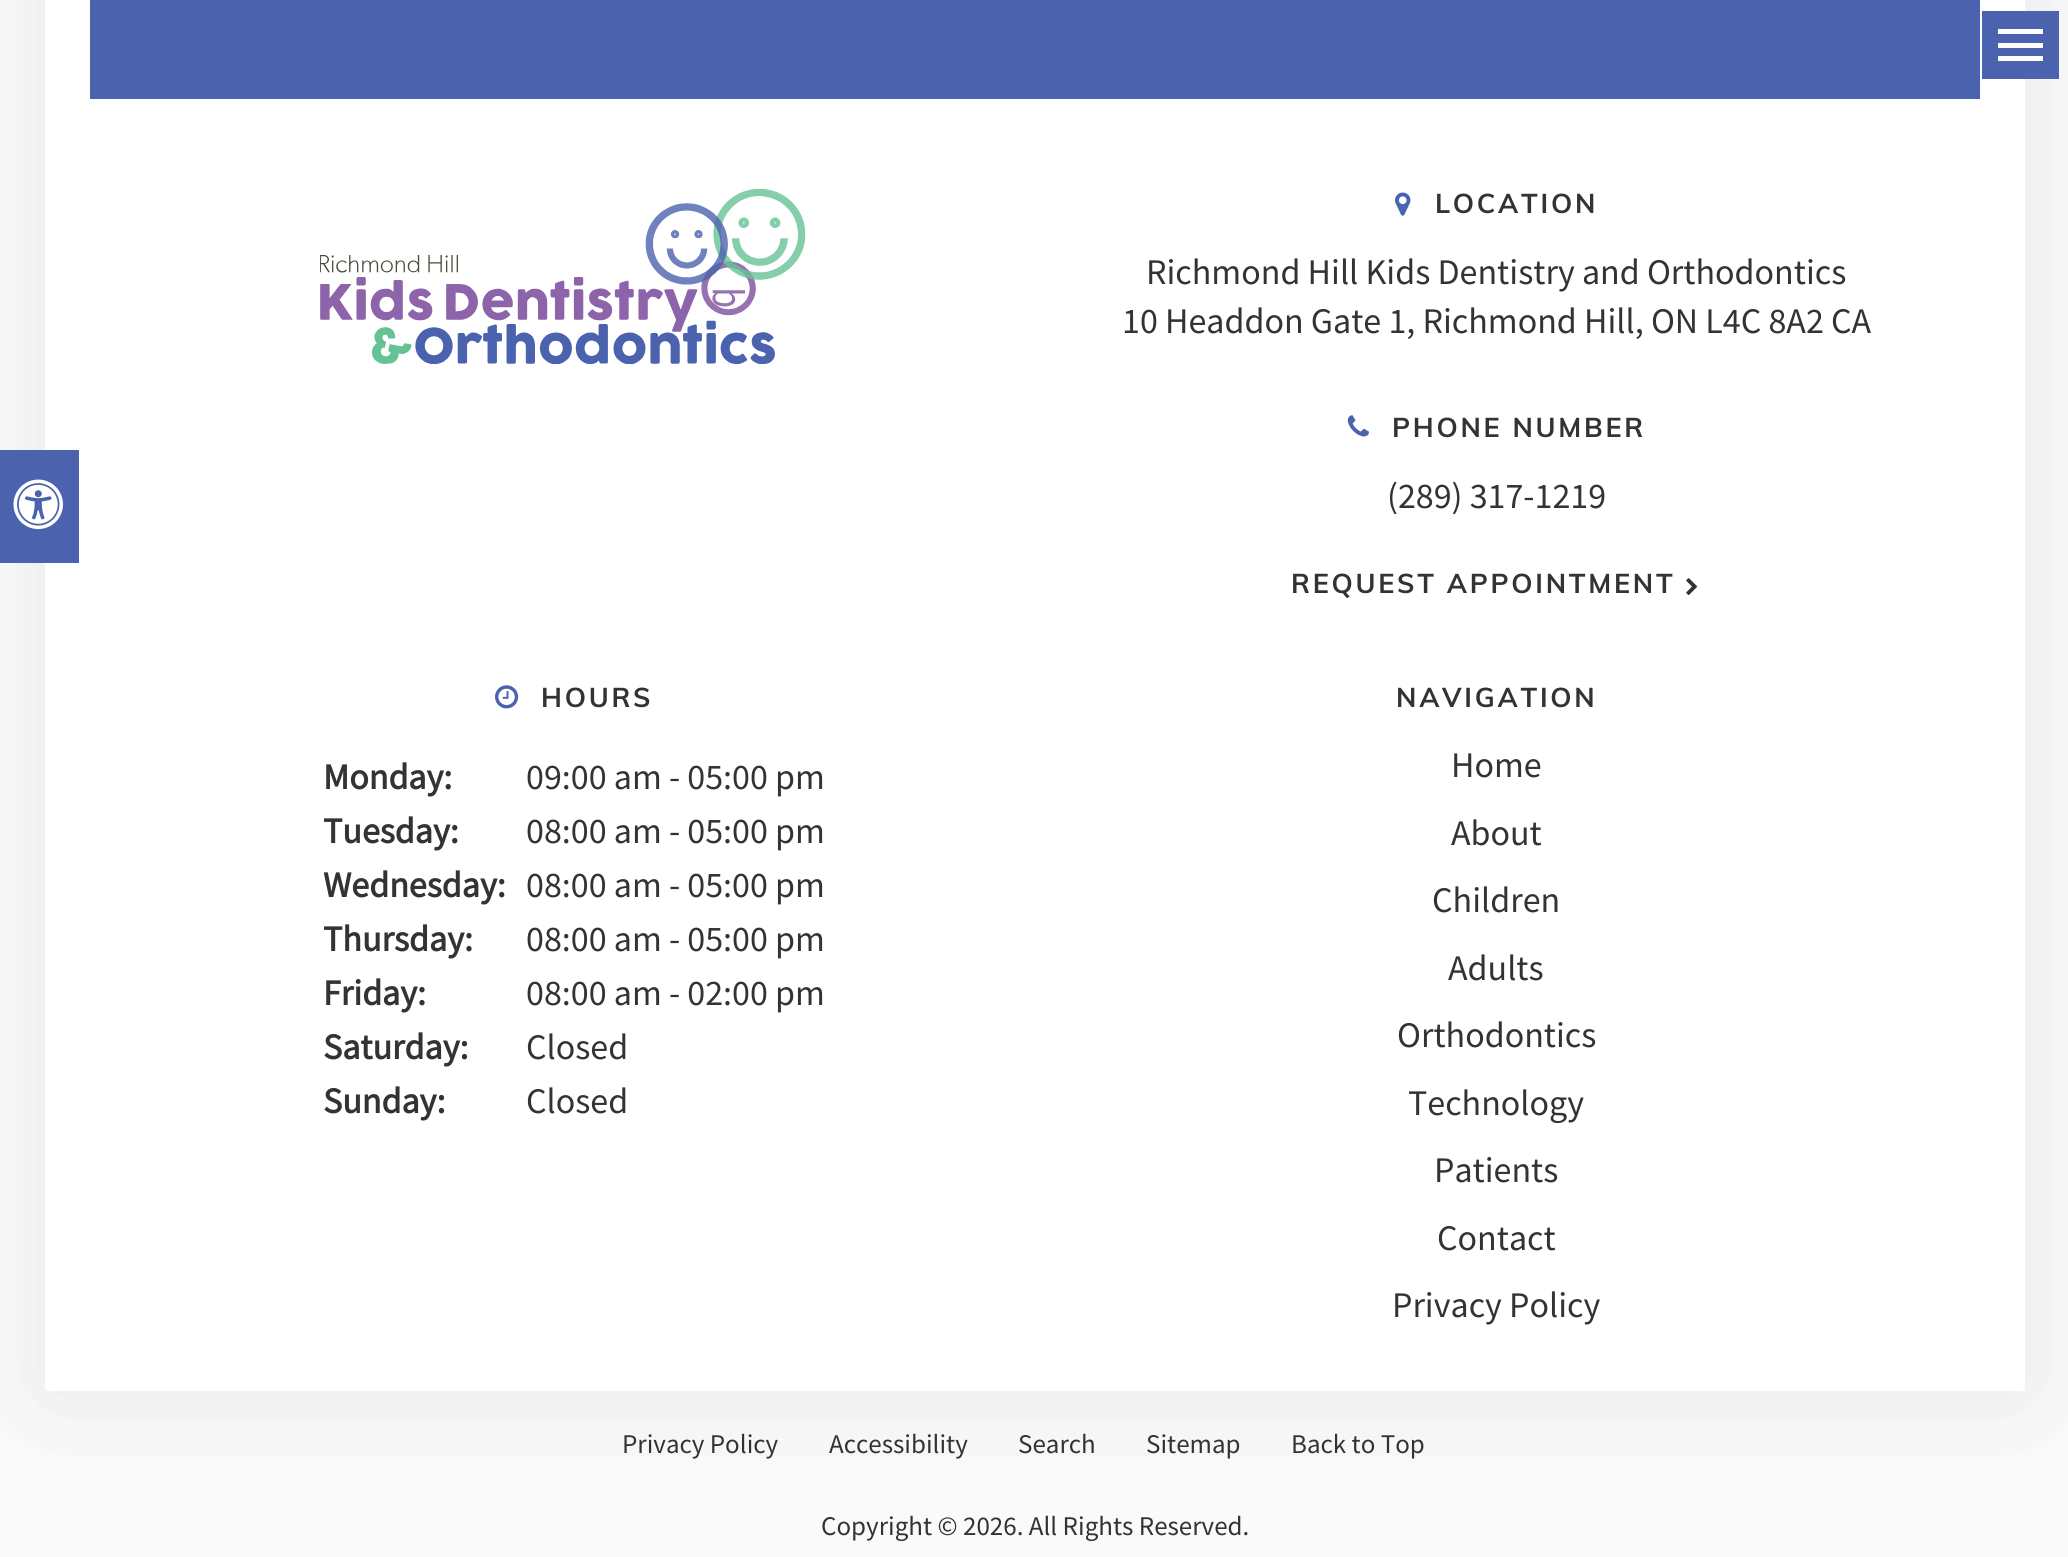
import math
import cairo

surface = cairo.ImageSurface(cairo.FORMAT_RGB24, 2068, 1557)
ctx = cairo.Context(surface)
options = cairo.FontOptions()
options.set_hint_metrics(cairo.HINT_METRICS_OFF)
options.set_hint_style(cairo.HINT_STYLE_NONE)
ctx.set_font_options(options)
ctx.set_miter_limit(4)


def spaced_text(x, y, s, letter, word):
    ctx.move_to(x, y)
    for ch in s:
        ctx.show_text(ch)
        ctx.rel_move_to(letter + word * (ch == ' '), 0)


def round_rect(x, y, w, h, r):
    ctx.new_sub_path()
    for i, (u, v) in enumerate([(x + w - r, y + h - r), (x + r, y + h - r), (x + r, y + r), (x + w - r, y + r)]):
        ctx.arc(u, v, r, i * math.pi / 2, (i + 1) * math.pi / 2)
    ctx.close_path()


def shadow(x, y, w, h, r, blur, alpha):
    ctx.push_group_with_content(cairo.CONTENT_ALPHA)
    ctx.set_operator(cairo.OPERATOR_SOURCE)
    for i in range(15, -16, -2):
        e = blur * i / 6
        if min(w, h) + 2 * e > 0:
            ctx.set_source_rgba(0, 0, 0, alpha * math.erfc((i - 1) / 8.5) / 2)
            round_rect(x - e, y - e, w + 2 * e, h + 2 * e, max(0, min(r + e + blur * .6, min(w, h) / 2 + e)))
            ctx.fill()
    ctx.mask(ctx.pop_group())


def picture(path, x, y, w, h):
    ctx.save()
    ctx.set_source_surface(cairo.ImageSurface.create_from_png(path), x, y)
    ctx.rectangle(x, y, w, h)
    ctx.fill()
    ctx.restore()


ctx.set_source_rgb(0.98, 0.98, 0.98)
ctx.paint()
ctx.set_source_rgb(0.267, 0.267, 0.267)
shadow(45, -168, 1980, 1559, 0, 56, 0.1)
ctx.set_source_rgb(1, 1, 1)
ctx.rectangle(45, 0, 1980, 1391)
ctx.fill()
ctx.set_source_rgb(0.294, 0.388, 0.682)
ctx.rectangle(1982, 11, 77, 68)
ctx.fill()
ctx.set_source_rgb(1, 1, 1)
ctx.rectangle(1998, 29, 45, 5)
ctx.fill()
ctx.rectangle(1998, 43, 45, 5)
ctx.fill()
ctx.rectangle(1998, 56, 45, 5)
ctx.fill()
ctx.set_source_rgb(0.294, 0.388, 0.682)
ctx.rectangle(0, 450, 79, 113)
ctx.fill()
picture("img1.png", 13, 479, 50, 51)
ctx.rectangle(90, 0, 1890, 99)
ctx.fill()
picture("img2.png", 320, 189, 486, 175)
picture("img3.png", 1395, 192, 16, 24)
ctx.select_font_face("Muli", cairo.FONT_SLANT_NORMAL, cairo.FONT_WEIGHT_BOLD)
ctx.set_font_size(27)
ctx.set_source_rgb(0.2, 0.2, 0.2)
spaced_text(1435, 213, "LOCATION", 2.75, 0)
ctx.select_font_face("Source Sans Pro")
ctx.set_font_size(36)
ctx.move_to(1146, 284)
ctx.show_text("Richmond Hill Kids Dentistry and Orthodontics")
ctx.move_to(1122, 333)
ctx.show_text("10 Headdon Gate 1, Richmond Hill, ON L4C 8A2 CA")
picture("img4.png", 1347, 415, 22, 22)
ctx.select_font_face("Muli", cairo.FONT_SLANT_NORMAL, cairo.FONT_WEIGHT_BOLD)
ctx.set_font_size(27)
spaced_text(1392, 437, "PHONE NUMBER", 2.75, 0)
ctx.select_font_face("Source Sans Pro")
ctx.set_font_size(36)
ctx.move_to(1387, 508)
ctx.show_text("(289) 317-1219")
ctx.select_font_face("Muli", cairo.FONT_SLANT_NORMAL, cairo.FONT_WEIGHT_BOLD)
ctx.set_font_size(27)
spaced_text(1291, 593, "REQUEST APPOINTMENT", 2.75, 0)
picture("img5.png", 1686, 578, 12, 17)
picture("img6.png", 495, 685, 24, 24)
spaced_text(541, 707, "HOURS", 2.75, 0)
ctx.select_font_face("Source Sans Pro", cairo.FONT_SLANT_NORMAL, cairo.FONT_WEIGHT_BOLD)
ctx.set_font_size(36)
ctx.move_to(323, 789)
ctx.show_text("Monday:")
ctx.select_font_face("Source Sans Pro")
ctx.move_to(526, 789)
ctx.show_text("09:00 am - 05:00 pm")
ctx.select_font_face("Source Sans Pro", cairo.FONT_SLANT_NORMAL, cairo.FONT_WEIGHT_BOLD)
ctx.move_to(323, 843)
ctx.show_text("Tuesday:")
ctx.select_font_face("Source Sans Pro")
ctx.move_to(526, 843)
ctx.show_text("08:00 am - 05:00 pm")
ctx.select_font_face("Source Sans Pro", cairo.FONT_SLANT_NORMAL, cairo.FONT_WEIGHT_BOLD)
ctx.move_to(323, 897)
ctx.show_text("Wednesday:")
ctx.select_font_face("Source Sans Pro")
ctx.move_to(526, 897)
ctx.show_text("08:00 am - 05:00 pm")
ctx.select_font_face("Source Sans Pro", cairo.FONT_SLANT_NORMAL, cairo.FONT_WEIGHT_BOLD)
ctx.move_to(323, 951)
ctx.show_text("Thursday:")
ctx.select_font_face("Source Sans Pro")
ctx.move_to(526, 951)
ctx.show_text("08:00 am - 05:00 pm")
ctx.select_font_face("Source Sans Pro", cairo.FONT_SLANT_NORMAL, cairo.FONT_WEIGHT_BOLD)
ctx.move_to(323, 1005)
ctx.show_text("Friday:")
ctx.select_font_face("Source Sans Pro")
ctx.move_to(526, 1005)
ctx.show_text("08:00 am - 02:00 pm")
ctx.select_font_face("Source Sans Pro", cairo.FONT_SLANT_NORMAL, cairo.FONT_WEIGHT_BOLD)
ctx.move_to(323, 1059)
ctx.show_text("Saturday:")
ctx.select_font_face("Source Sans Pro")
ctx.move_to(526, 1059)
ctx.show_text("Closed")
ctx.select_font_face("Source Sans Pro", cairo.FONT_SLANT_NORMAL, cairo.FONT_WEIGHT_BOLD)
ctx.move_to(323, 1113)
ctx.show_text("Sunday:")
ctx.select_font_face("Source Sans Pro")
ctx.move_to(526, 1113)
ctx.show_text("Closed")
ctx.select_font_face("Muli", cairo.FONT_SLANT_NORMAL, cairo.FONT_WEIGHT_BOLD)
ctx.set_font_size(27)
spaced_text(1396, 707, "NAVIGATION", 2.75, 0)
ctx.select_font_face("Source Sans Pro")
ctx.set_font_size(36)
ctx.move_to(1451, 777)
ctx.show_text("Home")
ctx.move_to(1451, 845)
ctx.show_text("About")
ctx.move_to(1432, 912)
ctx.show_text("Children")
ctx.move_to(1448, 980)
ctx.show_text("Adults")
ctx.move_to(1397, 1047)
ctx.show_text("Orthodontics")
ctx.move_to(1408, 1115)
ctx.show_text("Technology")
ctx.move_to(1434, 1182)
ctx.show_text("Patients")
ctx.move_to(1437, 1250)
ctx.show_text("Contact")
ctx.move_to(1392, 1317)
ctx.show_text("Privacy Policy")
ctx.set_font_size(27)
ctx.move_to(622, 1453)
ctx.show_text("Privacy Policy")
ctx.move_to(829, 1453)
ctx.show_text("Accessibility")
ctx.move_to(1018, 1453)
ctx.show_text("Search")
ctx.move_to(1146, 1453)
ctx.show_text("Sitemap")
ctx.move_to(1291, 1453)
ctx.show_text("Back to Top")
ctx.move_to(821, 1535)
ctx.show_text("Copyright © 2026. All Rights Reserved.")
surface.write_to_png("page.png")
